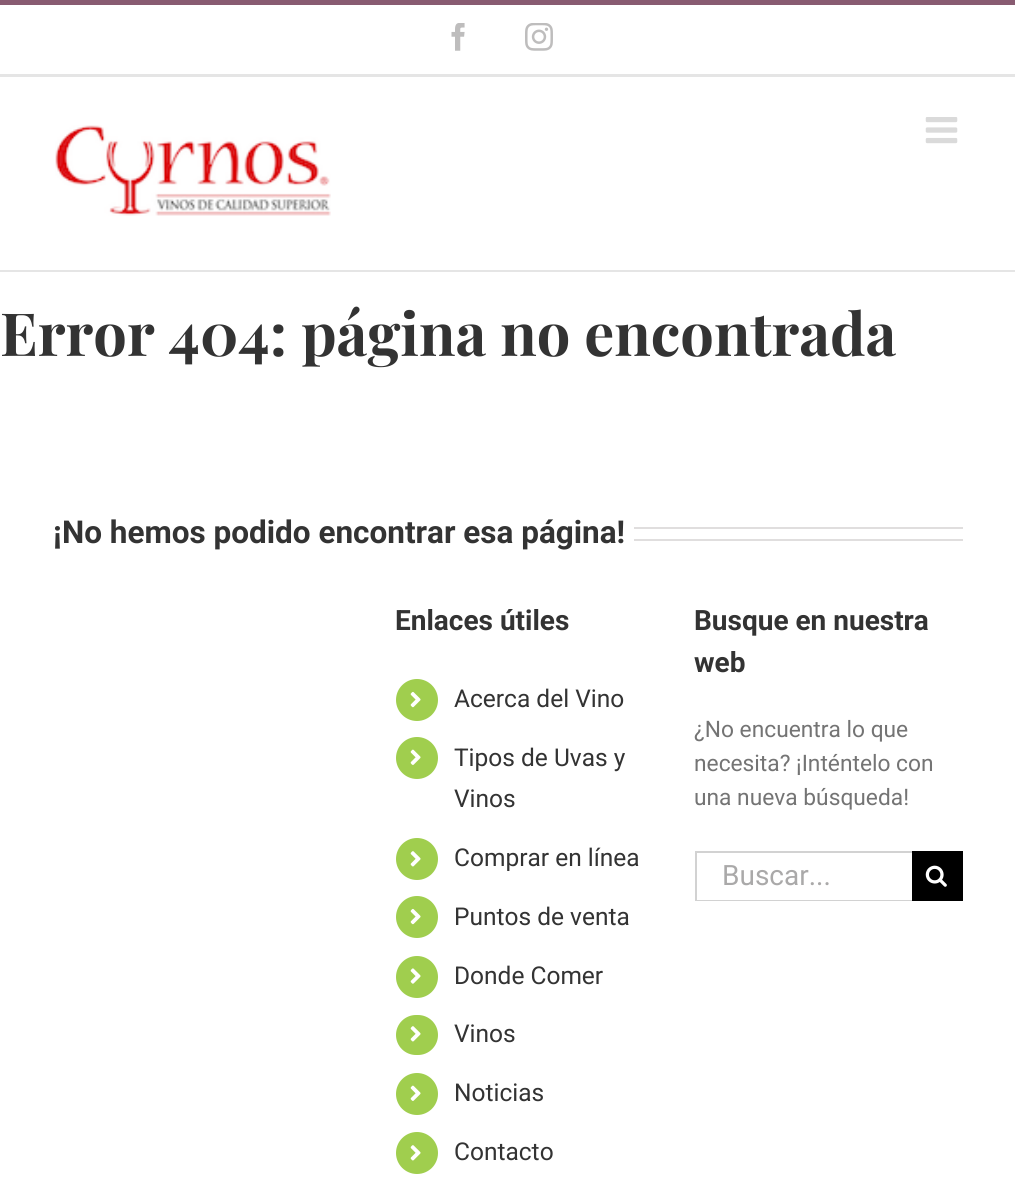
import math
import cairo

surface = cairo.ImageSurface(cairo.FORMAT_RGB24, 1015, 1200)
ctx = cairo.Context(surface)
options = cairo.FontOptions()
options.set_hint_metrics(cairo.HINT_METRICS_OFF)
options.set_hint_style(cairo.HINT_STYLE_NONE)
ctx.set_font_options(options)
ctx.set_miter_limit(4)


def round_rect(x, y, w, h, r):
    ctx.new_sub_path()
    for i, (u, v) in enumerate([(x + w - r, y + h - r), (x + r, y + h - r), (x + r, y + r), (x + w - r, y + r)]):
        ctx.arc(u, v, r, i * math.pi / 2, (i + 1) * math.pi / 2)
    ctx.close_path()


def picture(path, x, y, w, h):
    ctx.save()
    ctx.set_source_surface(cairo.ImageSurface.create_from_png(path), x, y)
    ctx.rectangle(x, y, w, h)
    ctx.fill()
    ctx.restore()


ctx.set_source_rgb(1, 1, 1)
ctx.paint()
ctx.set_source_rgb(0.533, 0.357, 0.443)
ctx.rectangle(0, 0, 1015, 5)
ctx.fill()
ctx.set_source_rgb(0.898, 0.898, 0.898)
ctx.rectangle(0, 74, 1015, 3)
ctx.fill()
picture("img1.png", 451, 23, 14, 28)
picture("img2.png", 525, 23, 28, 28)
ctx.rectangle(0, 270, 1015, 2)
ctx.fill()
picture("img3.png", 55, 125, 276, 91)
picture("img4.png", 925, 117, 33, 27)
ctx.select_font_face("Playfair Display", cairo.FONT_SLANT_NORMAL, cairo.FONT_WEIGHT_BOLD)
ctx.set_font_size(59.5)
ctx.set_source_rgb(0.2, 0.2, 0.2)
ctx.move_to(0, 356)
ctx.show_text("Error 404: página no encontrada")
ctx.select_font_face("Roboto", cairo.FONT_SLANT_NORMAL, cairo.FONT_WEIGHT_BOLD)
ctx.set_font_size(31.5)
ctx.move_to(53, 543)
ctx.show_text("¡No hemos podido encontrar esa página!")
ctx.set_source_rgb(0.878, 0.871, 0.871)
ctx.rectangle(634, 527, 329, 2)
ctx.fill()
ctx.rectangle(634, 539, 329, 2)
ctx.fill()
ctx.set_font_size(28)
ctx.set_source_rgb(0.2, 0.2, 0.2)
ctx.move_to(395, 630)
ctx.show_text("Enlaces útiles")
ctx.set_source_rgb(0.627, 0.808, 0.306)
ctx.new_path()
ctx.arc(417, 700, 21, 0, 2 * math.pi)
ctx.fill()
picture("img5.png", 410, 691, 11, 17)
ctx.select_font_face("Roboto")
ctx.set_font_size(24.5)
ctx.set_source_rgb(0.2, 0.2, 0.2)
ctx.move_to(454, 707)
ctx.show_text("Acerca del Vino")
ctx.set_source_rgb(0.627, 0.808, 0.306)
ctx.new_path()
ctx.arc(417, 758, 21, 0, 2 * math.pi)
ctx.fill()
picture("img6.png", 410, 749, 11, 16)
ctx.set_source_rgb(0.2, 0.2, 0.2)
ctx.move_to(454, 766)
ctx.show_text("Tipos de Uvas y")
ctx.move_to(454, 807)
ctx.show_text("Vinos")
ctx.set_source_rgb(0.627, 0.808, 0.306)
ctx.new_path()
ctx.arc(417, 859, 21, 0, 2 * math.pi)
ctx.fill()
picture("img7.png", 410, 851, 11, 16)
ctx.set_source_rgb(0.2, 0.2, 0.2)
ctx.move_to(454, 866)
ctx.show_text("Comprar en línea")
ctx.set_source_rgb(0.627, 0.808, 0.306)
ctx.new_path()
ctx.arc(417, 917, 21, 0, 2 * math.pi)
ctx.fill()
picture("img5.png", 410, 908, 11, 17)
ctx.set_source_rgb(0.2, 0.2, 0.2)
ctx.move_to(454, 925)
ctx.show_text("Puntos de venta")
ctx.set_source_rgb(0.627, 0.808, 0.306)
ctx.new_path()
ctx.arc(417, 977, 21, 0, 2 * math.pi)
ctx.fill()
picture("img8.png", 410, 968, 11, 16)
ctx.set_source_rgb(0.2, 0.2, 0.2)
ctx.move_to(454, 984)
ctx.show_text("Donde Comer")
ctx.set_source_rgb(0.627, 0.808, 0.306)
round_rect(396, 1015, 42, 40, 20)
ctx.fill()
picture("img7.png", 410, 1026, 11, 16)
ctx.set_source_rgb(0.2, 0.2, 0.2)
ctx.move_to(454, 1042)
ctx.show_text("Vinos")
ctx.set_source_rgb(0.627, 0.808, 0.306)
ctx.new_path()
ctx.arc(417, 1094, 21, 0, 2 * math.pi)
ctx.fill()
picture("img6.png", 410, 1085, 11, 16)
ctx.set_source_rgb(0.2, 0.2, 0.2)
ctx.move_to(454, 1101)
ctx.show_text("Noticias")
ctx.set_source_rgb(0.627, 0.808, 0.306)
ctx.new_path()
ctx.arc(417, 1153, 21, 0, 2 * math.pi)
ctx.fill()
picture("img7.png", 410, 1145, 11, 16)
ctx.set_source_rgb(0.2, 0.2, 0.2)
ctx.move_to(454, 1160)
ctx.show_text("Contacto")
ctx.select_font_face("Roboto", cairo.FONT_SLANT_NORMAL, cairo.FONT_WEIGHT_BOLD)
ctx.set_font_size(28)
ctx.move_to(694, 630)
ctx.show_text("Busque en nuestra")
ctx.move_to(694, 672)
ctx.show_text("web")
ctx.select_font_face("Roboto")
ctx.set_font_size(22.75)
ctx.set_source_rgb(0.455, 0.455, 0.455)
ctx.move_to(694, 737)
ctx.show_text("¿No encuentra lo que")
ctx.move_to(694, 771)
ctx.show_text("necesita? ¡Inténtelo con")
ctx.move_to(694, 805)
ctx.show_text("una nueva búsqueda!")
ctx.set_source_rgb(0.824, 0.824, 0.824)
ctx.rectangle(695, 851, 217, 2)
ctx.fill()
ctx.rectangle(695, 900, 217, 1)
ctx.fill()
ctx.rectangle(695, 851, 2, 50)
ctx.fill()
ctx.set_font_size(28)
ctx.set_source_rgb(0.667, 0.663, 0.663)
ctx.move_to(722, 885)
ctx.show_text("Buscar...")
ctx.set_source_rgb(0, 0, 0)
ctx.rectangle(912, 851, 51, 50)
ctx.fill()
picture("img9.png", 925, 865, 22, 22)
surface.write_to_png("page.png")
